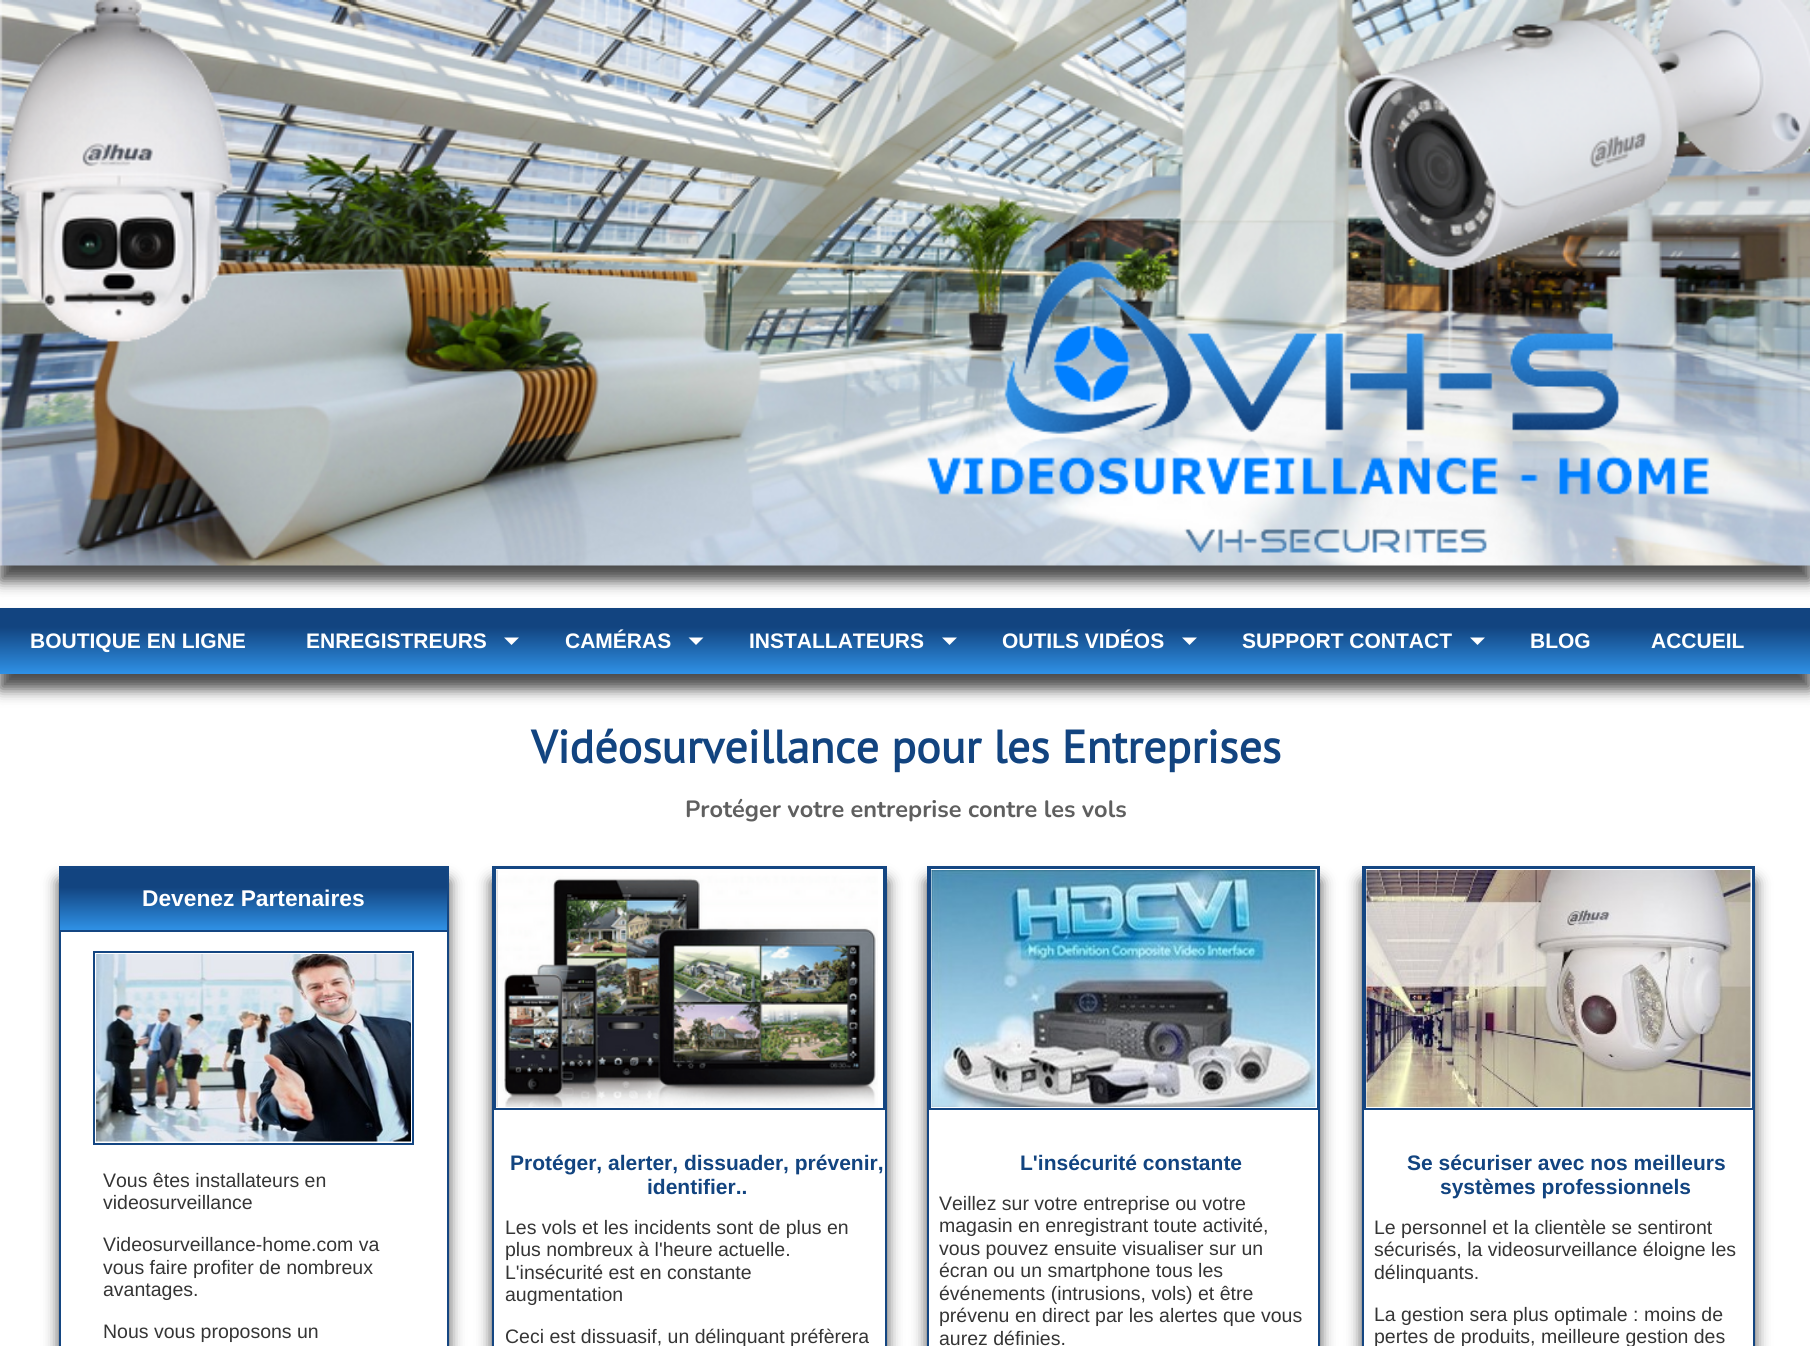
import math
import cairo

surface = cairo.ImageSurface(cairo.FORMAT_RGB24, 1810, 1346)
ctx = cairo.Context(surface)
options = cairo.FontOptions()
options.set_hint_metrics(cairo.HINT_METRICS_OFF)
options.set_hint_style(cairo.HINT_STYLE_NONE)
ctx.set_font_options(options)
ctx.set_miter_limit(4)


def round_rect(x, y, w, h, r):
    ctx.new_sub_path()
    for i, (u, v) in enumerate([(x + w - r, y + h - r), (x + r, y + h - r), (x + r, y + r), (x + w - r, y + r)]):
        ctx.arc(u, v, r, i * math.pi / 2, (i + 1) * math.pi / 2)
    ctx.close_path()


def shadow(x, y, w, h, r, blur, alpha):
    ctx.push_group_with_content(cairo.CONTENT_ALPHA)
    ctx.set_operator(cairo.OPERATOR_SOURCE)
    for i in range(15, -16, -2):
        e = blur * i / 6
        if min(w, h) + 2 * e > 0:
            ctx.set_source_rgba(0, 0, 0, alpha * math.erfc((i - 1) / 8.5) / 2)
            round_rect(x - e, y - e, w + 2 * e, h + 2 * e, max(0, min(r + e + blur * .6, min(w, h) / 2 + e)))
            ctx.fill()
    ctx.mask(ctx.pop_group())


def picture(path, x, y, w, h):
    ctx.save()
    ctx.set_source_surface(cairo.ImageSurface.create_from_png(path), x, y)
    ctx.rectangle(x, y, w, h)
    ctx.fill()
    ctx.restore()


ctx.set_source_rgb(1, 1, 1)
ctx.paint()
ctx.set_source_rgb(0.29, 0.29, 0.29)
shadow(0, 15, 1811, 566, 0, 7.5, 1)
picture("img1.png", 0, 0, 1810, 566)
shadow(0, 623, 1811, 66, 0, 7.5, 1)
gradient = cairo.LinearGradient(905, 607, 905, 674)
gradient.add_color_stop_rgba(0.3, 0.071, 0.267, 0.502, 1)
gradient.add_color_stop_rgba(1, 0.184, 0.569, 0.902, 1)
ctx.set_source(gradient)
ctx.rectangle(0, 608, 1810, 66)
ctx.fill()
ctx.select_font_face("Liberation Sans", cairo.FONT_SLANT_NORMAL, cairo.FONT_WEIGHT_BOLD)
ctx.set_font_size(21)
ctx.set_source_rgb(1, 1, 1)
ctx.move_to(30, 648)
ctx.show_text("BOUTIQUE EN LIGNE")
ctx.move_to(306, 648)
ctx.show_text("ENREGISTREURS")
ctx.new_path()
ctx.move_to(504, 637.5)
ctx.line_to(519, 637.5)
ctx.line_to(511.5, 645)
ctx.close_path()
ctx.fill()
ctx.move_to(565, 648)
ctx.show_text("CAMÉRAS")
ctx.new_path()
ctx.move_to(688.5, 637.5)
ctx.line_to(703.5, 637.5)
ctx.line_to(696, 645)
ctx.close_path()
ctx.fill()
ctx.move_to(749, 648)
ctx.show_text("INSTALLATEURS")
ctx.new_path()
ctx.move_to(942, 637.5)
ctx.line_to(957, 637.5)
ctx.line_to(949.5, 645)
ctx.close_path()
ctx.fill()
ctx.move_to(1002, 648)
ctx.show_text("OUTILS VIDÉOS")
ctx.new_path()
ctx.move_to(1182, 637.5)
ctx.line_to(1197, 637.5)
ctx.line_to(1189.5, 645)
ctx.close_path()
ctx.fill()
ctx.move_to(1242, 648)
ctx.show_text("SUPPORT CONTACT")
ctx.new_path()
ctx.move_to(1470, 637.5)
ctx.line_to(1485, 637.5)
ctx.line_to(1477.5, 645)
ctx.close_path()
ctx.fill()
ctx.move_to(1530, 648)
ctx.show_text("BLOG")
ctx.move_to(1651, 648)
ctx.show_text("ACCUEIL")
ctx.select_font_face("PT Sans", cairo.FONT_SLANT_NORMAL, cairo.FONT_WEIGHT_BOLD)
ctx.set_font_size(46)
ctx.set_source_rgb(0.071, 0.267, 0.502)
ctx.move_to(531, 763)
ctx.show_text("Vidéosurveillance pour les Entreprises")
ctx.select_font_face("Nunito", cairo.FONT_SLANT_NORMAL, cairo.FONT_WEIGHT_BOLD)
ctx.set_font_size(23.5)
ctx.set_source_rgb(0.373, 0.373, 0.373)
ctx.move_to(685, 817)
ctx.show_text("Protéger votre entreprise contre les vols")
ctx.save()
ctx.set_fill_rule(cairo.FILL_RULE_EVEN_ODD)
ctx.new_path()
ctx.move_to(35, 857)
ctx.line_to(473, 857)
ctx.line_to(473, 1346)
ctx.line_to(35, 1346)
ctx.close_path()
ctx.move_to(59, 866)
ctx.line_to(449, 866)
ctx.line_to(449, 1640)
ctx.line_to(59, 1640)
ctx.close_path()
ctx.clip()
ctx.set_source_rgb(0.29, 0.29, 0.29)
shadow(59, 881, 390, 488, 0, 7.5, 1)
ctx.restore()
ctx.rectangle(60, 867, 388, 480)
ctx.set_source_rgb(0.082, 0.275, 0.51)
ctx.stroke()
gradient = cairo.LinearGradient(254, 869, 254, 930)
gradient.add_color_stop_rgba(0.3, 0.071, 0.267, 0.502, 1)
gradient.add_color_stop_rgba(1, 0.184, 0.569, 0.902, 1)
ctx.set_source(gradient)
ctx.rectangle(60, 869, 387, 61)
ctx.fill()
ctx.set_source_rgb(0.082, 0.275, 0.51)
ctx.rectangle(60, 868, 387, 1)
ctx.fill()
ctx.rectangle(60, 930, 387, 2)
ctx.fill()
ctx.select_font_face("Liberation Sans", cairo.FONT_SLANT_NORMAL, cairo.FONT_WEIGHT_BOLD)
ctx.set_font_size(22.75)
ctx.set_source_rgb(1, 1, 1)
ctx.move_to(142, 906)
ctx.show_text("Devenez Partenaires")
ctx.rectangle(94, 952, 319, 192)
ctx.set_source_rgb(0.082, 0.275, 0.51)
ctx.stroke()
picture("img2.png", 96, 954, 315, 188)
ctx.select_font_face("Liberation Sans")
ctx.set_font_size(19.5)
ctx.set_source_rgb(0.208, 0.208, 0.208)
ctx.move_to(103, 1187)
ctx.show_text("Vous êtes installateurs en")
ctx.move_to(103, 1209)
ctx.show_text("videosurveillance")
ctx.move_to(103, 1251)
ctx.show_text("Videosurveillance-home.com va")
ctx.move_to(103, 1274)
ctx.show_text("vous faire profiter de nombreux")
ctx.move_to(103, 1296)
ctx.show_text("avantages.")
ctx.move_to(103, 1338)
ctx.show_text("Nous vous proposons un")
ctx.save()
ctx.set_fill_rule(cairo.FILL_RULE_EVEN_ODD)
ctx.new_path()
ctx.move_to(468, 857)
ctx.line_to(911, 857)
ctx.line_to(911, 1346)
ctx.line_to(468, 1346)
ctx.close_path()
ctx.move_to(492, 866)
ctx.line_to(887, 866)
ctx.line_to(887, 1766)
ctx.line_to(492, 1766)
ctx.close_path()
ctx.clip()
ctx.set_source_rgb(0.29, 0.29, 0.29)
shadow(492, 881, 395, 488, 0, 7.5, 1)
ctx.restore()
ctx.rectangle(493, 867, 393, 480)
ctx.set_source_rgb(0.082, 0.275, 0.51)
ctx.stroke()
ctx.rectangle(495, 868, 389, 241)
ctx.stroke()
picture("img3.png", 496, 870, 382, 237)
ctx.select_font_face("Liberation Sans", cairo.FONT_SLANT_NORMAL, cairo.FONT_WEIGHT_BOLD)
ctx.set_font_size(21)
ctx.set_source_rgb(0.071, 0.267, 0.502)
ctx.move_to(510, 1170)
ctx.show_text("Protéger, alerter, dissuader, prévenir,")
ctx.move_to(647, 1194)
ctx.show_text("identifier..")
ctx.select_font_face("Liberation Sans")
ctx.set_font_size(19.5)
ctx.set_source_rgb(0.208, 0.208, 0.208)
ctx.move_to(505, 1234)
ctx.show_text("Les vols et les incidents sont de plus en")
ctx.move_to(505, 1256)
ctx.show_text("plus nombreux à l'heure actuelle.")
ctx.move_to(505, 1279)
ctx.show_text("L'insécurité est en constante")
ctx.move_to(505, 1301)
ctx.show_text("augmentation")
ctx.move_to(505, 1343)
ctx.show_text("Ceci est dissuasif, un délinquant préfèrera")
ctx.save()
ctx.set_fill_rule(cairo.FILL_RULE_EVEN_ODD)
ctx.new_path()
ctx.move_to(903, 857)
ctx.line_to(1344, 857)
ctx.line_to(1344, 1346)
ctx.line_to(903, 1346)
ctx.close_path()
ctx.move_to(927, 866)
ctx.line_to(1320, 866)
ctx.line_to(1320, 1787)
ctx.line_to(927, 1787)
ctx.close_path()
ctx.clip()
ctx.set_source_rgb(0.29, 0.29, 0.29)
shadow(927, 881, 393, 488, 0, 7.5, 1)
ctx.restore()
ctx.rectangle(928, 867, 391, 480)
ctx.set_source_rgb(0.082, 0.275, 0.51)
ctx.stroke()
ctx.rectangle(930, 868, 388, 241)
ctx.stroke()
picture("img4.png", 931, 870, 385, 237)
ctx.select_font_face("Liberation Sans", cairo.FONT_SLANT_NORMAL, cairo.FONT_WEIGHT_BOLD)
ctx.set_font_size(21)
ctx.set_source_rgb(0.071, 0.267, 0.502)
ctx.move_to(1020, 1170)
ctx.show_text("L'insécurité constante")
ctx.select_font_face("Liberation Sans")
ctx.set_font_size(19.5)
ctx.set_source_rgb(0.208, 0.208, 0.208)
ctx.move_to(939, 1210)
ctx.show_text("Veillez sur votre entreprise ou votre")
ctx.move_to(939, 1232)
ctx.show_text("magasin en enregistrant toute activité,")
ctx.move_to(939, 1255)
ctx.show_text("vous pouvez ensuite visualiser sur un")
ctx.move_to(939, 1277)
ctx.show_text("écran ou un smartphone tous les")
ctx.move_to(939, 1300)
ctx.show_text("événements (intrusions, vols) et être")
ctx.move_to(939, 1322)
ctx.show_text("prévenu en direct par les alertes que vous")
ctx.move_to(939, 1345)
ctx.show_text("aurez définies.")
ctx.save()
ctx.set_fill_rule(cairo.FILL_RULE_EVEN_ODD)
ctx.new_path()
ctx.move_to(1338, 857)
ctx.line_to(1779, 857)
ctx.line_to(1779, 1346)
ctx.line_to(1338, 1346)
ctx.close_path()
ctx.move_to(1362, 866)
ctx.line_to(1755, 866)
ctx.line_to(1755, 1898)
ctx.line_to(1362, 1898)
ctx.close_path()
ctx.clip()
ctx.set_source_rgb(0.29, 0.29, 0.29)
shadow(1362, 881, 393, 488, 0, 7.5, 1)
ctx.restore()
ctx.rectangle(1363, 867, 391, 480)
ctx.set_source_rgb(0.082, 0.275, 0.51)
ctx.stroke()
ctx.rectangle(1365, 868, 388, 241)
ctx.stroke()
picture("img5.png", 1366, 870, 385, 237)
ctx.select_font_face("Liberation Sans", cairo.FONT_SLANT_NORMAL, cairo.FONT_WEIGHT_BOLD)
ctx.set_font_size(21)
ctx.set_source_rgb(0.071, 0.267, 0.502)
ctx.move_to(1407, 1170)
ctx.show_text("Se sécuriser avec nos meilleurs")
ctx.move_to(1440, 1194)
ctx.show_text("systèmes professionnels")
ctx.select_font_face("Liberation Sans")
ctx.set_font_size(19.5)
ctx.set_source_rgb(0.208, 0.208, 0.208)
ctx.move_to(1374, 1234)
ctx.show_text("Le personnel et la clientèle se sentiront")
ctx.move_to(1374, 1256)
ctx.show_text("sécurisés, la videosurveillance éloigne les")
ctx.move_to(1374, 1279)
ctx.show_text("délinquants.")
ctx.move_to(1374, 1321)
ctx.show_text("La gestion sera plus optimale : moins de")
ctx.move_to(1374, 1343)
ctx.show_text("pertes de produits, meilleure gestion des")
surface.write_to_png("page.png")
